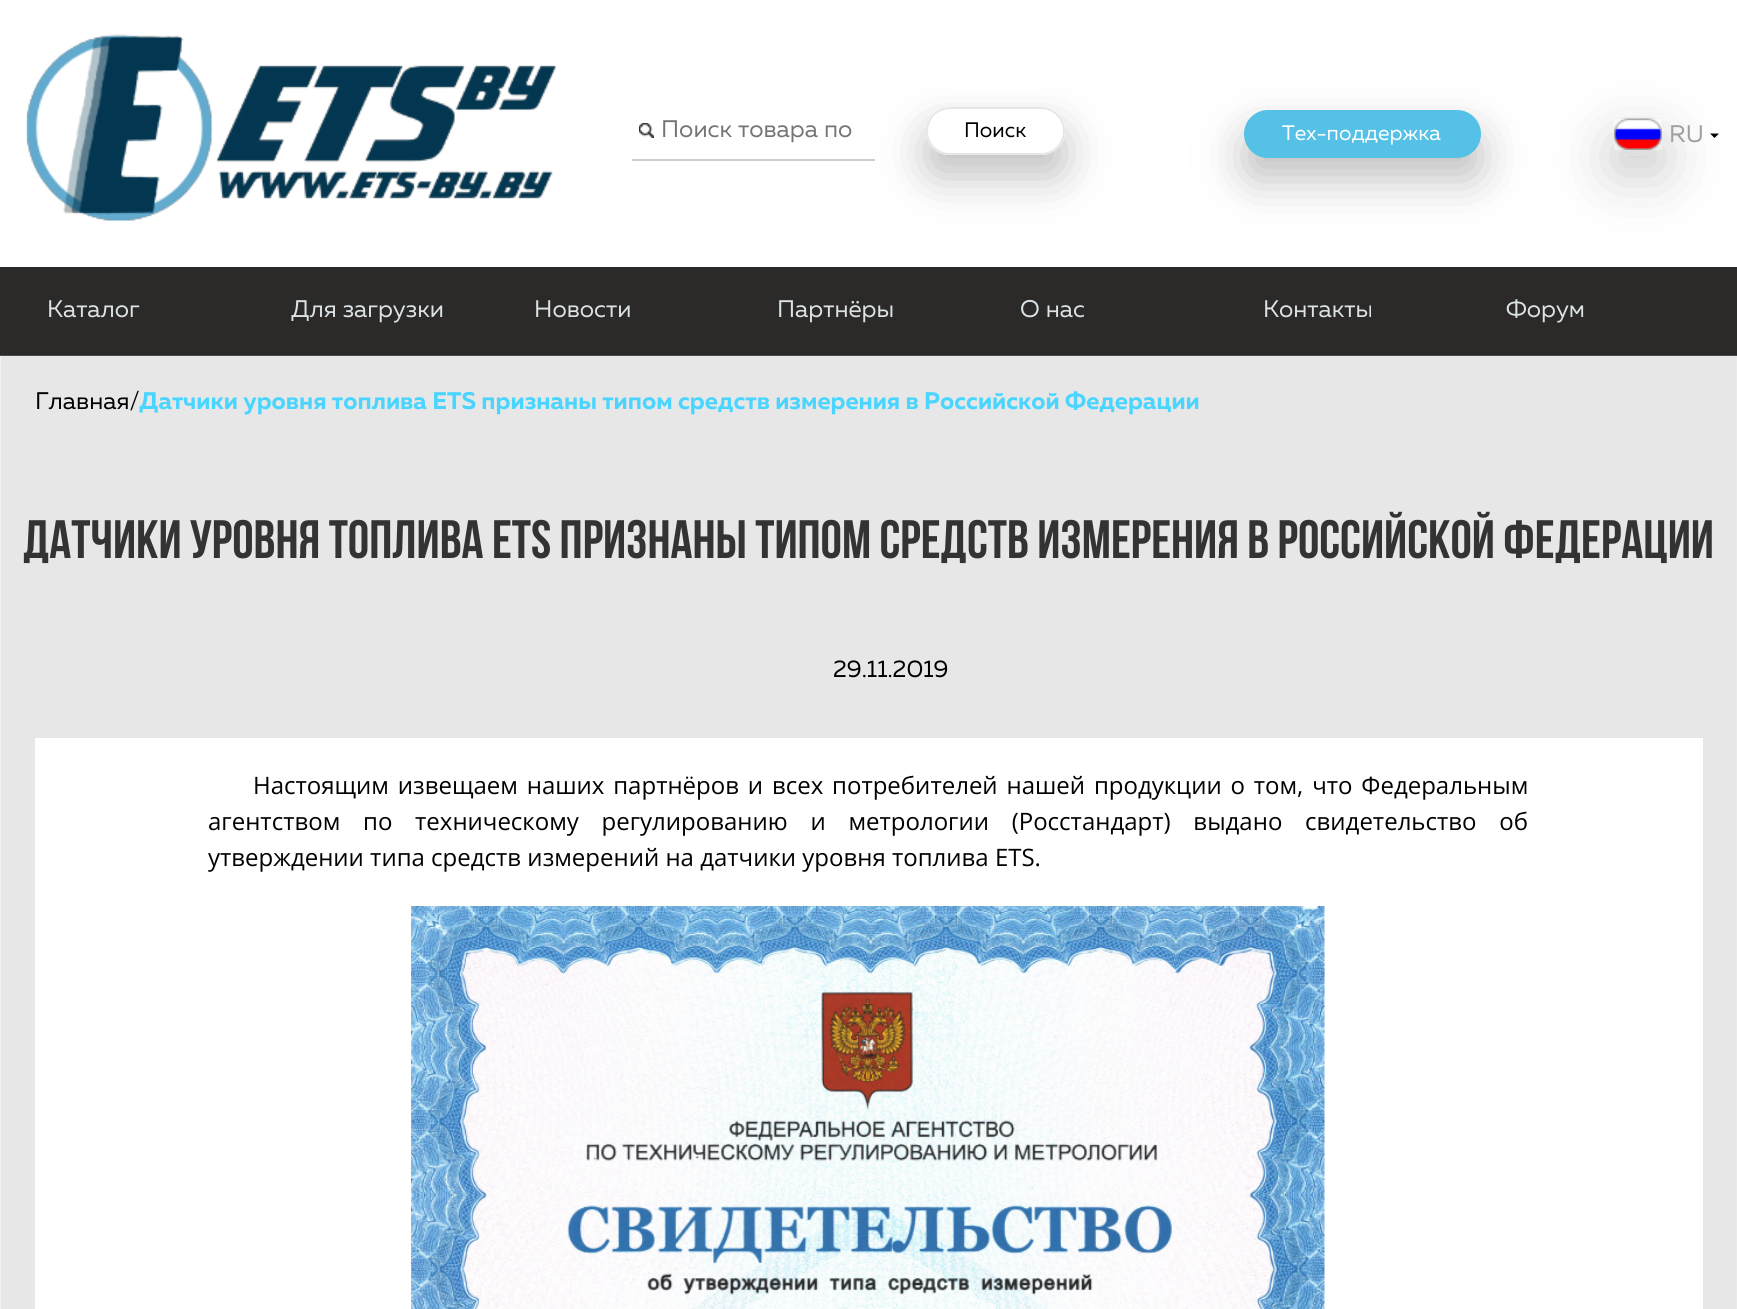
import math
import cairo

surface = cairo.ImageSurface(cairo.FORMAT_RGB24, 1737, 1309)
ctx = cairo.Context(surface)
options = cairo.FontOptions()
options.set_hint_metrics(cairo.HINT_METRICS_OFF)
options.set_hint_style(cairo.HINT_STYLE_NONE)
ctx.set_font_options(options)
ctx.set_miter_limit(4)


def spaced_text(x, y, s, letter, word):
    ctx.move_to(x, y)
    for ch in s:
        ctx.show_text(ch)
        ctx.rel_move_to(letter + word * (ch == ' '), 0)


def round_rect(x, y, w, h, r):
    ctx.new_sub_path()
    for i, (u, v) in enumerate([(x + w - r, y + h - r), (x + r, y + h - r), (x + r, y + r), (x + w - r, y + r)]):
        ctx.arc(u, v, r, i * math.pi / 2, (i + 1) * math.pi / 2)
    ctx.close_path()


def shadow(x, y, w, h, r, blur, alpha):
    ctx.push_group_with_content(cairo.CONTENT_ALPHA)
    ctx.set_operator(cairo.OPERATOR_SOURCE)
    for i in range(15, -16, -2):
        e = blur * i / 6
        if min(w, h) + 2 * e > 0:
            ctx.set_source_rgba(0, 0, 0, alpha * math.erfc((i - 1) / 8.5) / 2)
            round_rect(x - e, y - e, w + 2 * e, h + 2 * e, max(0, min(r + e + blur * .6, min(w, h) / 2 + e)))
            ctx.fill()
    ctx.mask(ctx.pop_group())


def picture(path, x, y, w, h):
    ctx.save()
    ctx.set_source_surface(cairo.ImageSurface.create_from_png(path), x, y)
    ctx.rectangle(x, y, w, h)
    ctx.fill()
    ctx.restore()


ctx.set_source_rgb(1, 1, 1)
ctx.paint()
picture("img1.png", 26, 34, 531, 187)
picture("img2.png", 639, 123, 15, 15)
ctx.set_source_rgb(0.804, 0.804, 0.804)
ctx.rectangle(632, 159, 243, 2)
ctx.fill()
ctx.select_font_face("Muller")
ctx.set_font_size(24)
ctx.set_source_rgb(0.459, 0.459, 0.459)
ctx.move_to(661, 137)
ctx.show_text("Поиск товара по")
ctx.save()
ctx.set_fill_rule(cairo.FILL_RULE_EVEN_ODD)
ctx.new_path()
ctx.move_to(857, 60)
ctx.line_to(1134, 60)
ctx.line_to(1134, 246)
ctx.line_to(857, 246)
ctx.close_path()
ctx.move_to(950, 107)
ctx.line_to(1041, 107)
ctx.curve_to(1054.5, 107, 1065, 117.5, 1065, 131)
ctx.curve_to(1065, 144.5, 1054.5, 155, 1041, 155)
ctx.line_to(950, 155)
ctx.curve_to(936.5, 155, 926, 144.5, 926, 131)
ctx.curve_to(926, 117.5, 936.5, 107, 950, 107)
ctx.close_path()
ctx.clip()
ctx.set_source_rgb(0.392, 0.392, 0.392)
shadow(926, 129, 139, 48, 24, 22.5, 0.4)
ctx.restore()
round_rect(927, 108, 137, 46, 23)
ctx.set_source_rgb(0.902, 0.902, 0.902)
ctx.stroke()
ctx.set_font_size(21)
ctx.set_source_rgb(0, 0, 0)
ctx.move_to(964, 137)
ctx.show_text("Поиск")
ctx.set_source_rgb(0.392, 0.392, 0.392)
shadow(1244, 132, 237, 48, 24, 22.5, 0.4)
ctx.set_source_rgb(0.333, 0.757, 0.902)
round_rect(1245, 111, 235, 46, 23)
ctx.fill_preserve()
ctx.stroke()
ctx.set_source_rgb(1, 1, 1)
ctx.move_to(1282, 140)
ctx.show_text("Тех-поддержка")
ctx.save()
ctx.set_fill_rule(cairo.FILL_RULE_EVEN_ODD)
ctx.new_path()
ctx.move_to(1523, 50)
ctx.line_to(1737, 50)
ctx.line_to(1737, 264)
ctx.line_to(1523, 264)
ctx.close_path()
ctx.move_to(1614, 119)
ctx.line_to(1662, 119)
ctx.line_to(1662, 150)
ctx.line_to(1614, 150)
ctx.close_path()
ctx.clip()
ctx.set_source_rgb(0.8, 0.8, 0.8)
shadow(1614, 141, 48, 32, 0, 30, 1)
ctx.restore()
picture("img3.png", 1614, 118, 48, 32)
ctx.set_font_size(24)
ctx.set_source_rgb(0.624, 0.62, 0.612)
ctx.move_to(1669, 142)
ctx.show_text("RU")
ctx.set_source_rgb(0, 0, 0)
ctx.new_path()
ctx.move_to(1710, 133.5)
ctx.line_to(1719, 133.5)
ctx.line_to(1714.5, 138)
ctx.close_path()
ctx.fill()
ctx.set_source_rgb(0.169, 0.165, 0.157)
ctx.rectangle(0, 267, 1737, 89)
ctx.fill()
ctx.set_source_rgb(0.863, 0.89, 0.902)
ctx.move_to(47, 317)
ctx.show_text("Каталог")
ctx.move_to(291, 317)
ctx.show_text("Для загрузки")
ctx.move_to(534, 317)
ctx.show_text("Новости")
ctx.move_to(777, 317)
ctx.show_text("Партнёры")
ctx.move_to(1020, 317)
ctx.show_text("О нас")
ctx.move_to(1263, 317)
ctx.show_text("Контакты")
ctx.move_to(1506, 317)
ctx.show_text("Форум")
picture("img4.png", 0, 355, 1737, 954)
ctx.set_source_rgb(0, 0, 0)
ctx.move_to(35, 409)
ctx.show_text("Главная/")
ctx.select_font_face("Muller", cairo.FONT_SLANT_NORMAL, cairo.FONT_WEIGHT_BOLD)
ctx.set_source_rgb(0.286, 0.835, 1)
ctx.move_to(139, 409)
ctx.show_text("Датчики уровня топлива ETS признаны типом средств измерения в Российской Федерации")
ctx.select_font_face("Bebas Neue", cairo.FONT_SLANT_NORMAL, cairo.FONT_WEIGHT_BOLD)
ctx.set_font_size(54)
ctx.set_source_rgb(0.2, 0.2, 0.2)
ctx.move_to(23, 558)
ctx.show_text("ДАТЧИКИ УРОВНЯ ТОПЛИВА ETS ПРИЗНАНЫ ТИПОМ СРЕДСТВ ИЗМЕРЕНИЯ В РОССИЙСКОЙ ФЕДЕРАЦИИ")
ctx.select_font_face("Muller")
ctx.set_font_size(24)
ctx.set_source_rgb(0, 0, 0)
ctx.move_to(833, 677)
ctx.show_text("29.11.2019")
ctx.set_source_rgb(1, 1, 1)
ctx.rectangle(35, 738, 1668, 571)
ctx.fill()
ctx.select_font_face("Open Sans")
ctx.set_source_rgb(0, 0, 0)
spaced_text(253, 794, "Настоящим извещаем наших партнёров и всех потребителей нашей продукции о том, что Федеральным", 0, 2.6)
spaced_text(208, 830, "агентством по техническому регулированию и метрологии (Росстандарт) выдано свидетельство об", 0, 16.5)
ctx.move_to(208, 866)
ctx.show_text("утверждении типа средств измерений на датчики уровня топлива ETS.")
picture("img5.png", 411, 906, 914, 403)
surface.write_to_png("page.png")
